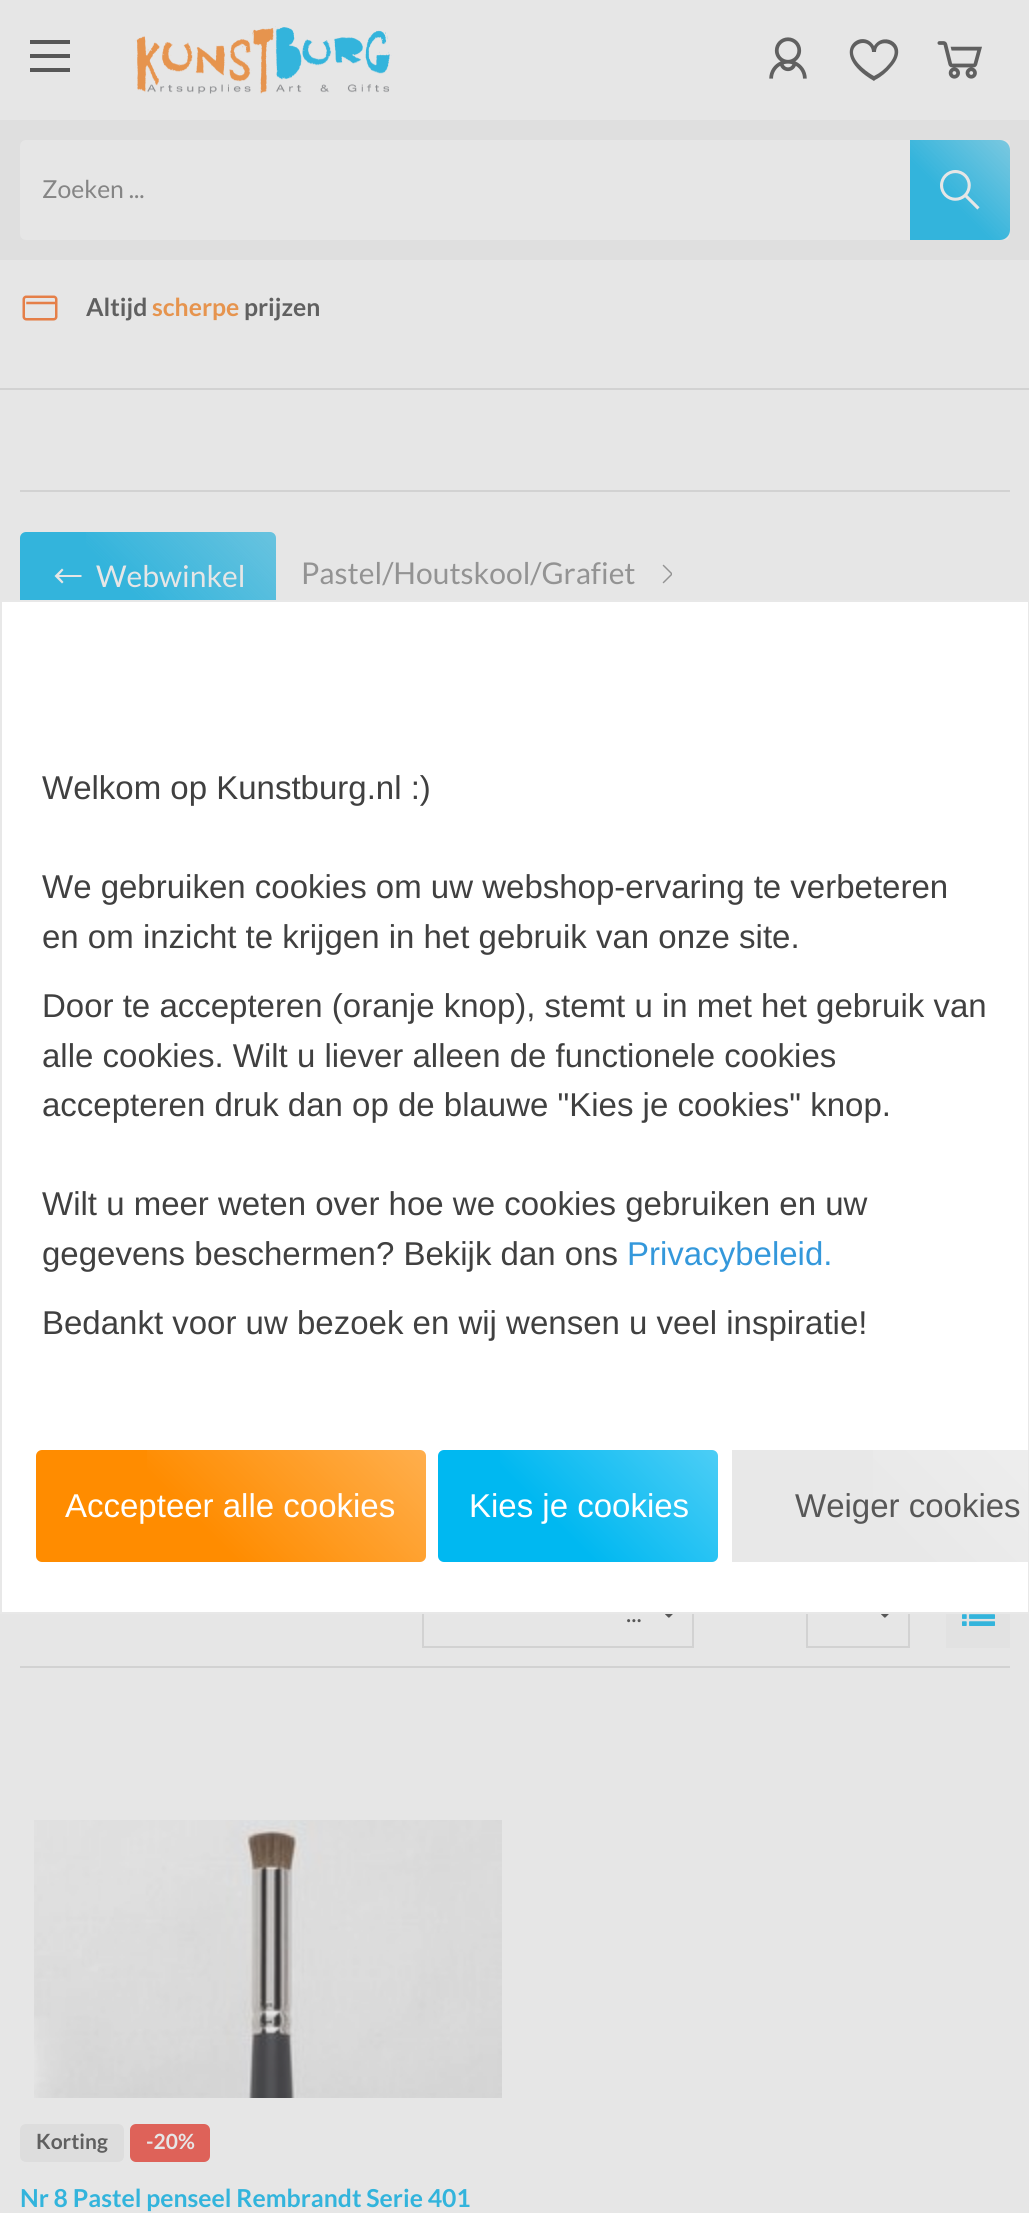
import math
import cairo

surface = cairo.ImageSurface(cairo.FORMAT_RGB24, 1029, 2213)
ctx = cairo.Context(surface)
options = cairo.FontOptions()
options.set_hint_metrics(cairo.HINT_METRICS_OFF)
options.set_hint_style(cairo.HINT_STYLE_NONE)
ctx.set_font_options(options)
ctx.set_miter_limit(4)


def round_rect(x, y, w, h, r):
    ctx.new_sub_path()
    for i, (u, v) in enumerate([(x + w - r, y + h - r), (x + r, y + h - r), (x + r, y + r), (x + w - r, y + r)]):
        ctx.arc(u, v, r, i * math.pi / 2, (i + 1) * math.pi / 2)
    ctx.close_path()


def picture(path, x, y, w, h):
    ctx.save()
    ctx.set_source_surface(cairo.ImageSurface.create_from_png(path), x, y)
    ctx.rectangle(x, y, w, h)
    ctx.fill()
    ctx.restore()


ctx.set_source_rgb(0.902, 0.902, 0.902)
ctx.paint()
ctx.set_source_rgb(0.341, 0.341, 0.341)
ctx.rectangle(30, 40, 40, 4)
ctx.fill()
ctx.rectangle(30, 54, 40, 4)
ctx.fill()
ctx.rectangle(30, 68, 40, 4)
ctx.fill()
picture("img1.png", 135, 26, 257, 68)
picture("img2.png", 769, 37, 38, 42)
ctx.set_source_rgb(0.376, 0.376, 0.376)
ctx.new_path()
ctx.move_to(874, 81)
ctx.curve_to(826, 53, 862, 26, 874, 46)
ctx.curve_to(884, 30, 911, 45, 891, 67)
ctx.curve_to(887, 72, 881, 77, 875, 80)
ctx.close_path()
ctx.move_to(863, 43)
ctx.curve_to(858, 43, 853, 47, 853, 52)
ctx.curve_to(853, 63, 870, 74, 874, 76)
ctx.curve_to(880, 73, 885, 69, 889, 64)
ctx.curve_to(907, 43, 876, 36, 876, 52)
ctx.line_to(872, 52)
ctx.curve_to(872, 47, 868, 43, 863, 43)
ctx.close_path()
ctx.fill()
picture("img3.png", 937, 41, 45, 38)
ctx.set_source_rgb(0.875, 0.875, 0.875)
ctx.rectangle(0, 120, 1029, 140)
ctx.fill()
ctx.set_source_rgb(0.902, 0.902, 0.902)
round_rect(20, 140, 990, 100, 6)
ctx.fill()
ctx.select_font_face("Lato")
ctx.set_font_size(24.75)
ctx.set_source_rgb(0.522, 0.522, 0.522)
ctx.move_to(42, 198)
ctx.show_text("Zoeken ...")
ctx.set_source_rgb(0.2, 0.706, 0.863)
ctx.new_path()
ctx.move_to(910, 140)
ctx.line_to(1000, 140)
ctx.curve_to(1005.5, 140, 1010, 144.5, 1010, 150)
ctx.line_to(1010, 230)
ctx.curve_to(1010, 235.5, 1005.5, 240, 1000, 240)
ctx.line_to(910, 240)
ctx.close_path()
ctx.fill()
gradient = cairo.LinearGradient(1010, 140, 910, 240)
gradient.add_color_stop_rgba(0, 0.902, 0.902, 0.902, 0.4)
gradient.add_color_stop_rgba(0.6, 0.902, 0.902, 0.902, 0)
ctx.set_source(gradient)
ctx.rectangle(910, 140, 100, 100)
ctx.fill()
picture("img4.png", 940, 170, 40, 40)
ctx.set_source_rgb(0.824, 0.824, 0.824)
ctx.rectangle(0, 388, 1029, 2)
ctx.fill()
picture("img5.png", 22, 295, 36, 26)
ctx.select_font_face("Lato", cairo.FONT_SLANT_NORMAL, cairo.FONT_WEIGHT_BOLD)
ctx.set_source_rgb(0.376, 0.376, 0.376)
ctx.move_to(86, 316)
ctx.show_text("Altijd")
ctx.set_source_rgb(0.902, 0.58, 0.306)
ctx.move_to(152, 316)
ctx.show_text("scherpe")
ctx.set_source_rgb(0.376, 0.376, 0.376)
ctx.move_to(244, 316)
ctx.show_text("prijzen")
ctx.set_source_rgb(0.824, 0.824, 0.824)
ctx.rectangle(20, 490, 990, 2)
ctx.fill()
ctx.set_source_rgb(0.2, 0.706, 0.863)
round_rect(20, 532, 256, 86, 6)
ctx.fill()
gradient = cairo.LinearGradient(234, 490, 63, 661)
gradient.add_color_stop_rgba(0, 0.902, 0.902, 0.902, 0.3)
gradient.add_color_stop_rgba(0.6, 0.902, 0.902, 0.902, 0)
ctx.set_source(gradient)
ctx.rectangle(86, 532, 190, 68)
ctx.fill()
ctx.set_source_rgb(0.902, 0.902, 0.902)
ctx.new_path()
ctx.move_to(62, 568.5)
ctx.line_to(54.5, 576)
ctx.line_to(62, 583.5)
ctx.line_to(63.5, 582)
ctx.line_to(59, 577)
ctx.line_to(81.5, 577)
ctx.line_to(81.5, 575)
ctx.line_to(59, 575)
ctx.line_to(63.5, 570)
ctx.close_path()
ctx.fill()
ctx.select_font_face("Lato")
ctx.set_font_size(30)
ctx.move_to(96, 587)
ctx.show_text("Webwinkel")
ctx.set_source_rgb(0.576, 0.576, 0.576)
ctx.move_to(301, 584)
ctx.show_text("Pastel/Houtskool/Grafiet")
picture("img6.png", 662, 564, 10, 20)
ctx.set_source_rgb(0.824, 0.824, 0.824)
ctx.rectangle(20, 1666, 990, 2)
ctx.fill()
ctx.rectangle(423, 1581, 270, 66)
ctx.stroke()
picture("img7.png", 665, 1614, 8, 4)
ctx.set_font_size(24.75)
ctx.set_source_rgb(0.341, 0.341, 0.341)
ctx.move_to(626, 1622)
ctx.show_text("...")
ctx.rectangle(807, 1581, 102, 66)
ctx.set_source_rgb(0.824, 0.824, 0.824)
ctx.stroke()
picture("img7.png", 881, 1614, 8, 4)
ctx.set_source_rgb(0.886, 0.886, 0.886)
ctx.rectangle(946, 1614, 64, 34)
ctx.fill()
picture("img8.png", 962, 1614, 33, 12)
picture("img9.png", 34, 1820, 468, 278)
ctx.set_source_rgb(0.867, 0.867, 0.867)
round_rect(20, 2124, 104, 38, 6)
ctx.fill()
ctx.select_font_face("Lato", cairo.FONT_SLANT_NORMAL, cairo.FONT_WEIGHT_BOLD)
ctx.set_font_size(21)
ctx.set_source_rgb(0.376, 0.376, 0.376)
ctx.move_to(36, 2149)
ctx.show_text("Korting")
ctx.set_source_rgb(0.871, 0.384, 0.349)
round_rect(130, 2124, 80, 38, 6)
ctx.fill()
ctx.set_source_rgb(0.902, 0.902, 0.902)
ctx.move_to(146, 2149)
ctx.show_text("-20%")
ctx.set_font_size(24.75)
ctx.set_source_rgb(0.2, 0.706, 0.863)
ctx.move_to(20, 2207)
ctx.show_text("Nr 8 Pastel penseel Rembrandt Serie 401")
ctx.set_source_rgb(1, 1, 1)
ctx.rectangle(1, 601, 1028, 1012)
ctx.fill_preserve()
ctx.set_source_rgb(0.91, 0.91, 0.91)
ctx.stroke()
ctx.select_font_face("Liberation Sans")
ctx.set_font_size(33)
ctx.set_source_rgb(0.251, 0.251, 0.251)
ctx.move_to(42, 799)
ctx.show_text("Welkom op Kunstburg.nl :)")
ctx.move_to(42, 898)
ctx.show_text("We gebruiken cookies om uw webshop-ervaring te verbeteren")
ctx.move_to(42, 948)
ctx.show_text("en om inzicht te krijgen in het gebruik van onze site.")
ctx.move_to(42, 1017)
ctx.show_text("Door te accepteren (oranje knop), stemt u in met het gebruik van")
ctx.move_to(42, 1067)
ctx.show_text("alle cookies. Wilt u liever alleen de functionele cookies")
ctx.move_to(42, 1116)
ctx.show_text("accepteren druk dan op de blauwe \"Kies je cookies\" knop.")
ctx.move_to(42, 1215)
ctx.show_text("Wilt u meer weten over hoe we cookies gebruiken en uw")
ctx.move_to(42, 1265)
ctx.show_text("gegevens beschermen? Bekijk dan ons")
ctx.set_source_rgb(0.204, 0.596, 0.859)
ctx.move_to(627, 1265)
ctx.show_text("Privacybeleid.")
ctx.set_source_rgb(0.251, 0.251, 0.251)
ctx.move_to(42, 1334)
ctx.show_text("Bedankt voor uw bezoek en wij wensen u veel inspiratie!")
ctx.set_source_rgb(1, 0.549, 0)
round_rect(36, 1450, 390, 112, 6)
ctx.fill()
gradient = cairo.LinearGradient(357, 1381, 106, 1632)
gradient.add_color_stop_rgba(0, 1, 1, 1, 0.3)
gradient.add_color_stop_rgba(0.6, 1, 1, 1, 0)
ctx.set_source(gradient)
ctx.rectangle(147, 1450, 279, 112)
ctx.fill()
ctx.set_source_rgb(1, 1, 1)
ctx.move_to(65, 1517)
ctx.show_text("Accepteer alle cookies")
ctx.set_source_rgb(0, 0.722, 0.945)
round_rect(438, 1450, 280, 112, 6)
ctx.fill()
gradient = cairo.LinearGradient(676, 1408, 480, 1604)
gradient.add_color_stop_rgba(0, 1, 1, 1, 0.3)
gradient.add_color_stop_rgba(0.6, 1, 1, 1, 0)
ctx.set_source(gradient)
ctx.rectangle(500, 1450, 218, 112)
ctx.fill()
ctx.set_source_rgb(1, 1, 1)
ctx.move_to(469, 1517)
ctx.show_text("Kies je cookies")
ctx.set_source_rgb(0.91, 0.91, 0.91)
ctx.rectangle(732, 1450, 296, 112)
ctx.fill()
gradient = cairo.LinearGradient(1024, 1390, 792, 1622)
gradient.add_color_stop_rgba(0, 1, 1, 1, 0.3)
gradient.add_color_stop_rgba(0.6, 1, 1, 1, 0)
ctx.set_source(gradient)
ctx.rectangle(873, 1450, 155, 112)
ctx.fill()
ctx.set_source_rgb(0.341, 0.341, 0.341)
ctx.move_to(795, 1517)
ctx.show_text("Weiger cookies")
surface.write_to_png("page.png")
